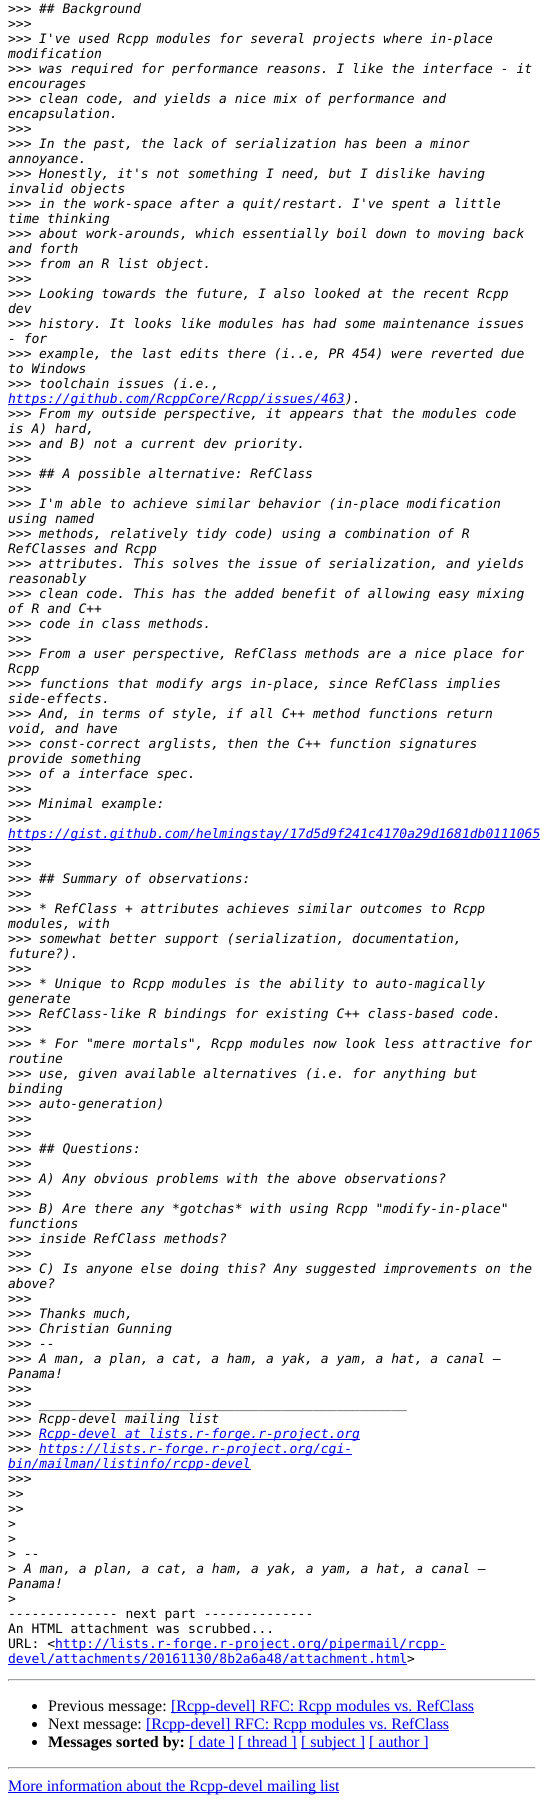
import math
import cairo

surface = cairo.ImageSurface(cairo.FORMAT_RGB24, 544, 1803)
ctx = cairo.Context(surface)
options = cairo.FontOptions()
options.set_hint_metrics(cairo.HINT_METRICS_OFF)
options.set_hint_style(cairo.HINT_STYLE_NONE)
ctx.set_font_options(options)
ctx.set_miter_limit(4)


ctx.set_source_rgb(1, 1, 1)
ctx.paint()
ctx.select_font_face("DejaVu Sans Mono")
ctx.set_font_size(13)
ctx.set_source_rgb(0, 0, 0)
ctx.move_to(8, 13)
ctx.show_text(">>>")
ctx.select_font_face("DejaVu Sans Mono", cairo.FONT_SLANT_ITALIC)
ctx.move_to(39, 13)
ctx.show_text("## Background")
ctx.select_font_face("DejaVu Sans Mono")
ctx.move_to(8, 28)
ctx.show_text(">>>")
ctx.move_to(8, 43)
ctx.show_text(">>>")
ctx.select_font_face("DejaVu Sans Mono", cairo.FONT_SLANT_ITALIC)
ctx.move_to(39, 43)
ctx.show_text("I've used Rcpp modules for several projects where in-place")
ctx.move_to(8, 58)
ctx.show_text("modification")
ctx.select_font_face("DejaVu Sans Mono")
ctx.move_to(8, 73)
ctx.show_text(">>>")
ctx.select_font_face("DejaVu Sans Mono", cairo.FONT_SLANT_ITALIC)
ctx.move_to(39, 73)
ctx.show_text("was required for performance reasons. I like the interface - it")
ctx.move_to(8, 88)
ctx.show_text("encourages")
ctx.select_font_face("DejaVu Sans Mono")
ctx.move_to(8, 103)
ctx.show_text(">>>")
ctx.select_font_face("DejaVu Sans Mono", cairo.FONT_SLANT_ITALIC)
ctx.move_to(39, 103)
ctx.show_text("clean code, and yields a nice mix of performance and")
ctx.move_to(8, 118)
ctx.show_text("encapsulation.")
ctx.select_font_face("DejaVu Sans Mono")
ctx.move_to(8, 133)
ctx.show_text(">>>")
ctx.move_to(8, 148)
ctx.show_text(">>>")
ctx.select_font_face("DejaVu Sans Mono", cairo.FONT_SLANT_ITALIC)
ctx.move_to(39, 148)
ctx.show_text("In the past, the lack of serialization has been a minor")
ctx.move_to(8, 163)
ctx.show_text("annoyance.")
ctx.select_font_face("DejaVu Sans Mono")
ctx.move_to(8, 178)
ctx.show_text(">>>")
ctx.select_font_face("DejaVu Sans Mono", cairo.FONT_SLANT_ITALIC)
ctx.move_to(39, 178)
ctx.show_text("Honestly, it's not something I need, but I dislike having")
ctx.move_to(8, 193)
ctx.show_text("invalid objects")
ctx.select_font_face("DejaVu Sans Mono")
ctx.move_to(8, 208)
ctx.show_text(">>>")
ctx.select_font_face("DejaVu Sans Mono", cairo.FONT_SLANT_ITALIC)
ctx.move_to(39, 208)
ctx.show_text("in the work-space after a quit/restart. I've spent a little")
ctx.move_to(8, 223)
ctx.show_text("time thinking")
ctx.select_font_face("DejaVu Sans Mono")
ctx.move_to(8, 238)
ctx.show_text(">>>")
ctx.select_font_face("DejaVu Sans Mono", cairo.FONT_SLANT_ITALIC)
ctx.move_to(39, 238)
ctx.show_text("about work-arounds, which essentially boil down to moving back")
ctx.move_to(8, 253)
ctx.show_text("and forth")
ctx.select_font_face("DejaVu Sans Mono")
ctx.move_to(8, 268)
ctx.show_text(">>>")
ctx.select_font_face("DejaVu Sans Mono", cairo.FONT_SLANT_ITALIC)
ctx.move_to(39, 268)
ctx.show_text("from an R list object.")
ctx.select_font_face("DejaVu Sans Mono")
ctx.move_to(8, 283)
ctx.show_text(">>>")
ctx.move_to(8, 298)
ctx.show_text(">>>")
ctx.select_font_face("DejaVu Sans Mono", cairo.FONT_SLANT_ITALIC)
ctx.move_to(39, 298)
ctx.show_text("Looking towards the future, I also looked at the recent Rcpp")
ctx.move_to(8, 313)
ctx.show_text("dev")
ctx.select_font_face("DejaVu Sans Mono")
ctx.move_to(8, 328)
ctx.show_text(">>>")
ctx.select_font_face("DejaVu Sans Mono", cairo.FONT_SLANT_ITALIC)
ctx.move_to(39, 328)
ctx.show_text("history. It looks like modules has had some maintenance issues")
ctx.move_to(8, 343)
ctx.show_text("- for")
ctx.select_font_face("DejaVu Sans Mono")
ctx.move_to(8, 358)
ctx.show_text(">>>")
ctx.select_font_face("DejaVu Sans Mono", cairo.FONT_SLANT_ITALIC)
ctx.move_to(39, 358)
ctx.show_text("example, the last edits there (i..e, PR 454) were reverted due")
ctx.move_to(8, 373)
ctx.show_text("to Windows")
ctx.select_font_face("DejaVu Sans Mono")
ctx.move_to(8, 388)
ctx.show_text(">>>")
ctx.select_font_face("DejaVu Sans Mono", cairo.FONT_SLANT_ITALIC)
ctx.move_to(39, 388)
ctx.show_text("toolchain issues (i.e.,")
ctx.set_source_rgb(0, 0, 0.933)
ctx.rectangle(8, 404, 337, 1)
ctx.fill()
ctx.move_to(8, 403)
ctx.show_text("https://github.com/RcppCore/Rcpp/issues/463")
ctx.set_source_rgb(0, 0, 0)
ctx.move_to(345, 403)
ctx.show_text(").")
ctx.select_font_face("DejaVu Sans Mono")
ctx.move_to(8, 418)
ctx.show_text(">>>")
ctx.select_font_face("DejaVu Sans Mono", cairo.FONT_SLANT_ITALIC)
ctx.move_to(39, 418)
ctx.show_text("From my outside perspective, it appears that the modules code")
ctx.move_to(8, 433)
ctx.show_text("is A) hard,")
ctx.select_font_face("DejaVu Sans Mono")
ctx.move_to(8, 448)
ctx.show_text(">>>")
ctx.select_font_face("DejaVu Sans Mono", cairo.FONT_SLANT_ITALIC)
ctx.move_to(39, 448)
ctx.show_text("and B) not a current dev priority.")
ctx.select_font_face("DejaVu Sans Mono")
ctx.move_to(8, 463)
ctx.show_text(">>>")
ctx.move_to(8, 478)
ctx.show_text(">>>")
ctx.select_font_face("DejaVu Sans Mono", cairo.FONT_SLANT_ITALIC)
ctx.move_to(39, 478)
ctx.show_text("## A possible alternative: RefClass")
ctx.select_font_face("DejaVu Sans Mono")
ctx.move_to(8, 493)
ctx.show_text(">>>")
ctx.move_to(8, 508)
ctx.show_text(">>>")
ctx.select_font_face("DejaVu Sans Mono", cairo.FONT_SLANT_ITALIC)
ctx.move_to(39, 508)
ctx.show_text("I'm able to achieve similar behavior (in-place modification")
ctx.move_to(8, 523)
ctx.show_text("using named")
ctx.select_font_face("DejaVu Sans Mono")
ctx.move_to(8, 538)
ctx.show_text(">>>")
ctx.select_font_face("DejaVu Sans Mono", cairo.FONT_SLANT_ITALIC)
ctx.move_to(39, 538)
ctx.show_text("methods, relatively tidy code) using a combination of R")
ctx.move_to(8, 553)
ctx.show_text("RefClasses and Rcpp")
ctx.select_font_face("DejaVu Sans Mono")
ctx.move_to(8, 568)
ctx.show_text(">>>")
ctx.select_font_face("DejaVu Sans Mono", cairo.FONT_SLANT_ITALIC)
ctx.move_to(39, 568)
ctx.show_text("attributes. This solves the issue of serialization, and yields")
ctx.move_to(8, 583)
ctx.show_text("reasonably")
ctx.select_font_face("DejaVu Sans Mono")
ctx.move_to(8, 598)
ctx.show_text(">>>")
ctx.select_font_face("DejaVu Sans Mono", cairo.FONT_SLANT_ITALIC)
ctx.move_to(39, 598)
ctx.show_text("clean code. This has the added benefit of allowing easy mixing")
ctx.move_to(8, 613)
ctx.show_text("of R and C++")
ctx.select_font_face("DejaVu Sans Mono")
ctx.move_to(8, 628)
ctx.show_text(">>>")
ctx.select_font_face("DejaVu Sans Mono", cairo.FONT_SLANT_ITALIC)
ctx.move_to(39, 628)
ctx.show_text("code in class methods.")
ctx.select_font_face("DejaVu Sans Mono")
ctx.move_to(8, 643)
ctx.show_text(">>>")
ctx.move_to(8, 658)
ctx.show_text(">>>")
ctx.select_font_face("DejaVu Sans Mono", cairo.FONT_SLANT_ITALIC)
ctx.move_to(39, 658)
ctx.show_text("From a user perspective, RefClass methods are a nice place for")
ctx.move_to(8, 673)
ctx.show_text("Rcpp")
ctx.select_font_face("DejaVu Sans Mono")
ctx.move_to(8, 688)
ctx.show_text(">>>")
ctx.select_font_face("DejaVu Sans Mono", cairo.FONT_SLANT_ITALIC)
ctx.move_to(39, 688)
ctx.show_text("functions that modify args in-place, since RefClass implies")
ctx.move_to(8, 703)
ctx.show_text("side-effects.")
ctx.select_font_face("DejaVu Sans Mono")
ctx.move_to(8, 718)
ctx.show_text(">>>")
ctx.select_font_face("DejaVu Sans Mono", cairo.FONT_SLANT_ITALIC)
ctx.move_to(39, 718)
ctx.show_text("And, in terms of style, if all C++ method functions return")
ctx.move_to(8, 733)
ctx.show_text("void, and have")
ctx.select_font_face("DejaVu Sans Mono")
ctx.move_to(8, 748)
ctx.show_text(">>>")
ctx.select_font_face("DejaVu Sans Mono", cairo.FONT_SLANT_ITALIC)
ctx.move_to(39, 748)
ctx.show_text("const-correct arglists, then the C++ function signatures")
ctx.move_to(8, 763)
ctx.show_text("provide something")
ctx.select_font_face("DejaVu Sans Mono")
ctx.move_to(8, 778)
ctx.show_text(">>>")
ctx.select_font_face("DejaVu Sans Mono", cairo.FONT_SLANT_ITALIC)
ctx.move_to(39, 778)
ctx.show_text("of a interface spec.")
ctx.select_font_face("DejaVu Sans Mono")
ctx.move_to(8, 793)
ctx.show_text(">>>")
ctx.move_to(8, 808)
ctx.show_text(">>>")
ctx.select_font_face("DejaVu Sans Mono", cairo.FONT_SLANT_ITALIC)
ctx.move_to(39, 808)
ctx.show_text("Minimal example:")
ctx.select_font_face("DejaVu Sans Mono")
ctx.move_to(8, 823)
ctx.show_text(">>>")
ctx.set_source_rgb(0, 0, 0.933)
ctx.rectangle(8, 839, 532, 1)
ctx.fill()
ctx.select_font_face("DejaVu Sans Mono", cairo.FONT_SLANT_ITALIC)
ctx.move_to(8, 838)
ctx.show_text("https://gist.github.com/helmingstay/17d5d9f241c4170a29d1681db0111065")
ctx.select_font_face("DejaVu Sans Mono")
ctx.set_source_rgb(0, 0, 0)
ctx.move_to(8, 853)
ctx.show_text(">>>")
ctx.move_to(8, 868)
ctx.show_text(">>>")
ctx.move_to(8, 883)
ctx.show_text(">>>")
ctx.select_font_face("DejaVu Sans Mono", cairo.FONT_SLANT_ITALIC)
ctx.move_to(39, 883)
ctx.show_text("## Summary of observations:")
ctx.select_font_face("DejaVu Sans Mono")
ctx.move_to(8, 898)
ctx.show_text(">>>")
ctx.move_to(8, 913)
ctx.show_text(">>>")
ctx.select_font_face("DejaVu Sans Mono", cairo.FONT_SLANT_ITALIC)
ctx.move_to(39, 913)
ctx.show_text("* RefClass + attributes achieves similar outcomes to Rcpp")
ctx.move_to(8, 928)
ctx.show_text("modules, with")
ctx.select_font_face("DejaVu Sans Mono")
ctx.move_to(8, 943)
ctx.show_text(">>>")
ctx.select_font_face("DejaVu Sans Mono", cairo.FONT_SLANT_ITALIC)
ctx.move_to(39, 943)
ctx.show_text("somewhat better support (serialization, documentation,")
ctx.move_to(8, 958)
ctx.show_text("future?).")
ctx.select_font_face("DejaVu Sans Mono")
ctx.move_to(8, 973)
ctx.show_text(">>>")
ctx.move_to(8, 988)
ctx.show_text(">>>")
ctx.select_font_face("DejaVu Sans Mono", cairo.FONT_SLANT_ITALIC)
ctx.move_to(39, 988)
ctx.show_text("* Unique to Rcpp modules is the ability to auto-magically")
ctx.move_to(8, 1003)
ctx.show_text("generate")
ctx.select_font_face("DejaVu Sans Mono")
ctx.move_to(8, 1018)
ctx.show_text(">>>")
ctx.select_font_face("DejaVu Sans Mono", cairo.FONT_SLANT_ITALIC)
ctx.move_to(39, 1018)
ctx.show_text("RefClass-like R bindings for existing C++ class-based code.")
ctx.select_font_face("DejaVu Sans Mono")
ctx.move_to(8, 1033)
ctx.show_text(">>>")
ctx.move_to(8, 1048)
ctx.show_text(">>>")
ctx.select_font_face("DejaVu Sans Mono", cairo.FONT_SLANT_ITALIC)
ctx.move_to(39, 1048)
ctx.show_text("* For \"mere mortals\", Rcpp modules now look less attractive for")
ctx.move_to(8, 1063)
ctx.show_text("routine")
ctx.select_font_face("DejaVu Sans Mono")
ctx.move_to(8, 1078)
ctx.show_text(">>>")
ctx.select_font_face("DejaVu Sans Mono", cairo.FONT_SLANT_ITALIC)
ctx.move_to(39, 1078)
ctx.show_text("use, given available alternatives (i.e. for anything but")
ctx.move_to(8, 1093)
ctx.show_text("binding")
ctx.select_font_face("DejaVu Sans Mono")
ctx.move_to(8, 1108)
ctx.show_text(">>>")
ctx.select_font_face("DejaVu Sans Mono", cairo.FONT_SLANT_ITALIC)
ctx.move_to(39, 1108)
ctx.show_text("auto-generation)")
ctx.select_font_face("DejaVu Sans Mono")
ctx.move_to(8, 1123)
ctx.show_text(">>>")
ctx.move_to(8, 1138)
ctx.show_text(">>>")
ctx.move_to(8, 1153)
ctx.show_text(">>>")
ctx.select_font_face("DejaVu Sans Mono", cairo.FONT_SLANT_ITALIC)
ctx.move_to(39, 1153)
ctx.show_text("## Questions:")
ctx.select_font_face("DejaVu Sans Mono")
ctx.move_to(8, 1168)
ctx.show_text(">>>")
ctx.move_to(8, 1183)
ctx.show_text(">>>")
ctx.select_font_face("DejaVu Sans Mono", cairo.FONT_SLANT_ITALIC)
ctx.move_to(39, 1183)
ctx.show_text("A) Any obvious problems with the above observations?")
ctx.select_font_face("DejaVu Sans Mono")
ctx.move_to(8, 1198)
ctx.show_text(">>>")
ctx.move_to(8, 1213)
ctx.show_text(">>>")
ctx.select_font_face("DejaVu Sans Mono", cairo.FONT_SLANT_ITALIC)
ctx.move_to(39, 1213)
ctx.show_text("B) Are there any *gotchas* with using Rcpp \"modify-in-place\"")
ctx.move_to(8, 1228)
ctx.show_text("functions")
ctx.select_font_face("DejaVu Sans Mono")
ctx.move_to(8, 1243)
ctx.show_text(">>>")
ctx.select_font_face("DejaVu Sans Mono", cairo.FONT_SLANT_ITALIC)
ctx.move_to(39, 1243)
ctx.show_text("inside RefClass methods?")
ctx.select_font_face("DejaVu Sans Mono")
ctx.move_to(8, 1258)
ctx.show_text(">>>")
ctx.move_to(8, 1273)
ctx.show_text(">>>")
ctx.select_font_face("DejaVu Sans Mono", cairo.FONT_SLANT_ITALIC)
ctx.move_to(39, 1273)
ctx.show_text("C) Is anyone else doing this? Any suggested improvements on the")
ctx.move_to(8, 1288)
ctx.show_text("above?")
ctx.select_font_face("DejaVu Sans Mono")
ctx.move_to(8, 1303)
ctx.show_text(">>>")
ctx.move_to(8, 1318)
ctx.show_text(">>>")
ctx.select_font_face("DejaVu Sans Mono", cairo.FONT_SLANT_ITALIC)
ctx.move_to(39, 1318)
ctx.show_text("Thanks much,")
ctx.select_font_face("DejaVu Sans Mono")
ctx.move_to(8, 1333)
ctx.show_text(">>>")
ctx.select_font_face("DejaVu Sans Mono", cairo.FONT_SLANT_ITALIC)
ctx.move_to(39, 1333)
ctx.show_text("Christian Gunning")
ctx.select_font_face("DejaVu Sans Mono")
ctx.move_to(8, 1348)
ctx.show_text(">>>")
ctx.select_font_face("DejaVu Sans Mono", cairo.FONT_SLANT_ITALIC)
ctx.move_to(39, 1348)
ctx.show_text("--")
ctx.select_font_face("DejaVu Sans Mono")
ctx.move_to(8, 1363)
ctx.show_text(">>>")
ctx.select_font_face("DejaVu Sans Mono", cairo.FONT_SLANT_ITALIC)
ctx.move_to(39, 1363)
ctx.show_text("A man, a plan, a cat, a ham, a yak, a yam, a hat, a canal –")
ctx.move_to(8, 1378)
ctx.show_text("Panama!")
ctx.select_font_face("DejaVu Sans Mono")
ctx.move_to(8, 1393)
ctx.show_text(">>>")
ctx.move_to(8, 1408)
ctx.show_text(">>>")
ctx.select_font_face("DejaVu Sans Mono", cairo.FONT_SLANT_ITALIC)
ctx.move_to(39, 1408)
ctx.show_text("_______________________________________________")
ctx.select_font_face("DejaVu Sans Mono")
ctx.move_to(8, 1423)
ctx.show_text(">>>")
ctx.select_font_face("DejaVu Sans Mono", cairo.FONT_SLANT_ITALIC)
ctx.move_to(39, 1423)
ctx.show_text("Rcpp-devel mailing list")
ctx.select_font_face("DejaVu Sans Mono")
ctx.move_to(8, 1438)
ctx.show_text(">>>")
ctx.set_source_rgb(0, 0, 0.933)
ctx.rectangle(39, 1439, 321, 1)
ctx.fill()
ctx.select_font_face("DejaVu Sans Mono", cairo.FONT_SLANT_ITALIC)
ctx.move_to(39, 1438)
ctx.show_text("Rcpp-devel at lists.r-forge.r-project.org")
ctx.select_font_face("DejaVu Sans Mono")
ctx.set_source_rgb(0, 0, 0)
ctx.move_to(8, 1453)
ctx.show_text(">>>")
ctx.set_source_rgb(0, 0, 0.933)
ctx.rectangle(39, 1454, 313, 1)
ctx.fill()
ctx.select_font_face("DejaVu Sans Mono", cairo.FONT_SLANT_ITALIC)
ctx.move_to(39, 1453)
ctx.show_text("https://lists.r-forge.r-project.org/cgi-")
ctx.rectangle(8, 1469, 243, 1)
ctx.fill()
ctx.move_to(8, 1468)
ctx.show_text("bin/mailman/listinfo/rcpp-devel")
ctx.select_font_face("DejaVu Sans Mono")
ctx.set_source_rgb(0, 0, 0)
ctx.move_to(8, 1483)
ctx.show_text(">>>")
ctx.move_to(8, 1498)
ctx.show_text(">>")
ctx.move_to(8, 1513)
ctx.show_text(">>")
ctx.move_to(8, 1528)
ctx.show_text(">")
ctx.move_to(8, 1543)
ctx.show_text(">")
ctx.move_to(8, 1558)
ctx.show_text(">")
ctx.select_font_face("DejaVu Sans Mono", cairo.FONT_SLANT_ITALIC)
ctx.move_to(24, 1558)
ctx.show_text("--")
ctx.select_font_face("DejaVu Sans Mono")
ctx.move_to(8, 1573)
ctx.show_text(">")
ctx.select_font_face("DejaVu Sans Mono", cairo.FONT_SLANT_ITALIC)
ctx.move_to(24, 1573)
ctx.show_text("A man, a plan, a cat, a ham, a yak, a yam, a hat, a canal –")
ctx.move_to(8, 1588)
ctx.show_text("Panama!")
ctx.select_font_face("DejaVu Sans Mono")
ctx.move_to(8, 1603)
ctx.show_text(">")
ctx.move_to(8, 1618)
ctx.show_text("-------------- next part --------------")
ctx.move_to(8, 1633)
ctx.show_text("An HTML attachment was scrubbed...")
ctx.move_to(8, 1648)
ctx.show_text("URL: <")
ctx.set_source_rgb(0, 0, 0.933)
ctx.rectangle(55, 1649, 391, 1)
ctx.fill()
ctx.move_to(55, 1648)
ctx.show_text("http://lists.r-forge.r-project.org/pipermail/rcpp-")
ctx.rectangle(8, 1664, 399, 1)
ctx.fill()
ctx.move_to(8, 1663)
ctx.show_text("devel/attachments/20161130/8b2a6a48/attachment.html")
ctx.set_source_rgb(0, 0, 0)
ctx.move_to(407, 1663)
ctx.show_text(">")
ctx.set_source_rgb(0.624, 0.624, 0.624)
ctx.rectangle(8, 1679, 528, 1)
ctx.fill()
ctx.set_source_rgb(0.933, 0.933, 0.933)
ctx.rectangle(535, 1679, 1, 2)
ctx.fill()
ctx.rectangle(8, 1680, 528, 1)
ctx.fill()
ctx.set_source_rgb(0.624, 0.624, 0.624)
ctx.rectangle(8, 1679, 1, 2)
ctx.fill()
ctx.set_source_rgb(0, 0, 0)
ctx.arc(34.5, 1706.5, 2.5, 0, 2 * math.pi)
ctx.fill()
ctx.select_font_face("Liberation Serif")
ctx.set_font_size(16)
ctx.move_to(48, 1711)
ctx.show_text("Previous message:")
ctx.set_source_rgb(0, 0, 0.933)
ctx.rectangle(171, 1712, 303, 1)
ctx.fill()
ctx.move_to(171, 1711)
ctx.show_text("[Rcpp-devel] RFC: Rcpp modules vs. RefClass")
ctx.set_source_rgb(0, 0, 0)
ctx.new_path()
ctx.arc(34.5, 1724.5, 2.5, 0, 2 * math.pi)
ctx.fill()
ctx.move_to(48, 1729)
ctx.show_text("Next message:")
ctx.set_source_rgb(0, 0, 0.933)
ctx.rectangle(146, 1730, 303, 1)
ctx.fill()
ctx.move_to(146, 1729)
ctx.show_text("[Rcpp-devel] RFC: Rcpp modules vs. RefClass")
ctx.set_source_rgb(0, 0, 0)
ctx.new_path()
ctx.arc(34.5, 1742.5, 2.5, 0, 2 * math.pi)
ctx.fill()
ctx.select_font_face("Liberation Serif", cairo.FONT_SLANT_NORMAL, cairo.FONT_WEIGHT_BOLD)
ctx.move_to(48, 1747)
ctx.show_text("Messages sorted by:")
ctx.set_source_rgb(0, 0, 0.933)
ctx.rectangle(189, 1748, 45, 1)
ctx.fill()
ctx.select_font_face("Liberation Serif")
ctx.move_to(189, 1747)
ctx.show_text("[ date ]")
ctx.rectangle(238, 1748, 59, 1)
ctx.fill()
ctx.move_to(238, 1747)
ctx.show_text("[ thread ]")
ctx.rectangle(301, 1748, 64, 1)
ctx.fill()
ctx.move_to(301, 1747)
ctx.show_text("[ subject ]")
ctx.rectangle(369, 1748, 59, 1)
ctx.fill()
ctx.move_to(369, 1747)
ctx.show_text("[ author ]")
ctx.set_source_rgb(0.624, 0.624, 0.624)
ctx.rectangle(8, 1767, 528, 1)
ctx.fill()
ctx.set_source_rgb(0.933, 0.933, 0.933)
ctx.rectangle(535, 1767, 1, 2)
ctx.fill()
ctx.rectangle(8, 1768, 528, 1)
ctx.fill()
ctx.set_source_rgb(0.624, 0.624, 0.624)
ctx.rectangle(8, 1767, 1, 2)
ctx.fill()
ctx.set_source_rgb(0, 0, 0.933)
ctx.rectangle(8, 1792, 331, 1)
ctx.fill()
ctx.move_to(8, 1791)
ctx.show_text("More information about the Rcpp-devel mailing list")
surface.write_to_png("page.png")
